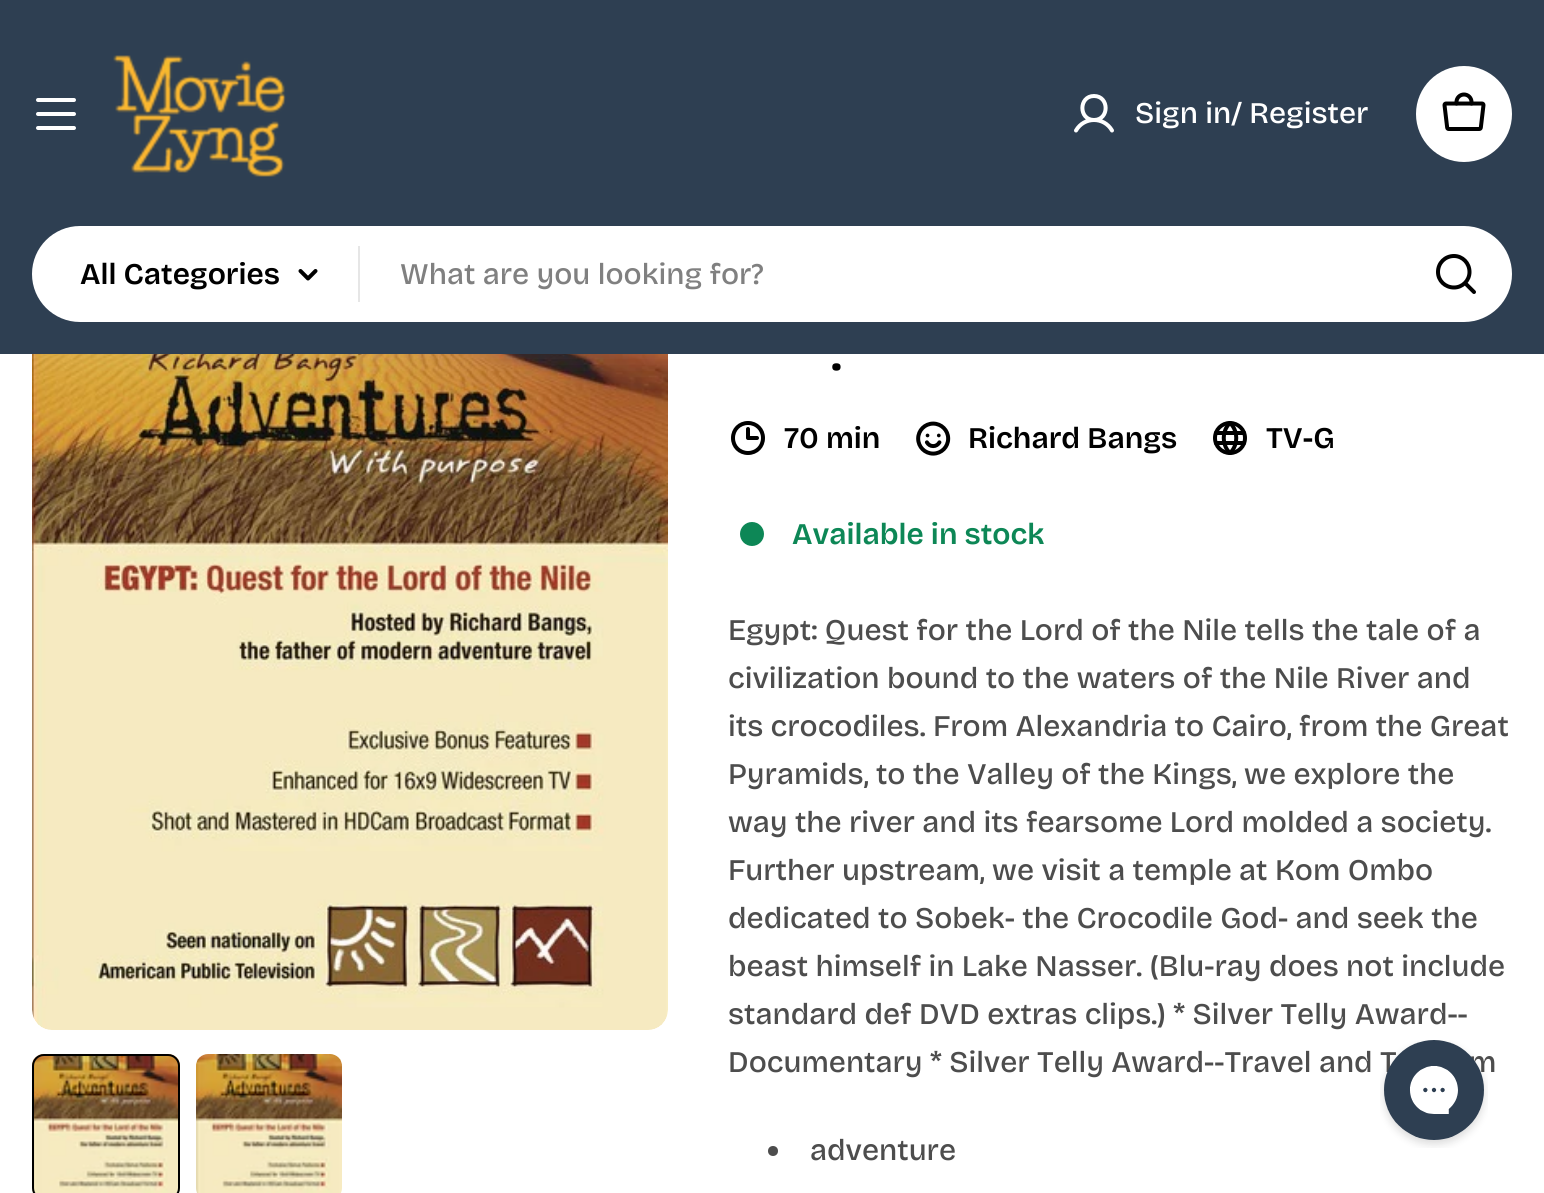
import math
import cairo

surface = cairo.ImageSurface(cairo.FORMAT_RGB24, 1544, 1193)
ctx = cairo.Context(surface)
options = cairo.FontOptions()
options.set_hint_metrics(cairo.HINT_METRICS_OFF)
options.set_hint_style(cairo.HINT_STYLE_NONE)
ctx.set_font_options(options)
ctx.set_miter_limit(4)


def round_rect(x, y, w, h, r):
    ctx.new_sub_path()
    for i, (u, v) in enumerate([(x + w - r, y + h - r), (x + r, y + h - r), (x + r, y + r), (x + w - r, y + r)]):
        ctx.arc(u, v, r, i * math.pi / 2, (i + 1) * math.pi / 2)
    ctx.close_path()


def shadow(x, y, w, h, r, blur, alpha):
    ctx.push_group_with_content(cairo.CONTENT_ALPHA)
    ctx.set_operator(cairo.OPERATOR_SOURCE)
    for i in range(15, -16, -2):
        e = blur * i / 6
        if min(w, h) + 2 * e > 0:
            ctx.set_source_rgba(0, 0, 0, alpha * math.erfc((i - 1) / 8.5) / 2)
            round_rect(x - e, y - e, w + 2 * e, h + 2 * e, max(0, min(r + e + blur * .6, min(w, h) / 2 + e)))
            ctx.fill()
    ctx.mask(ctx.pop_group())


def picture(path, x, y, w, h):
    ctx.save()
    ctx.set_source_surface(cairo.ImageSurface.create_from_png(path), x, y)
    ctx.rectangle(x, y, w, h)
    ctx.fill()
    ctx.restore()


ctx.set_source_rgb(1, 1, 1)
ctx.paint()
picture("img3.png", 32, 354, 636, 676)
shadow(0, 8, 1544, 354, 0, 18, 0.1)
ctx.set_source_rgb(0.18, 0.247, 0.322)
ctx.rectangle(0, 0, 1544, 354)
ctx.fill()
ctx.set_source_rgb(1, 1, 1)
round_rect(36, 112, 40, 4, 2)
ctx.fill()
round_rect(36, 98, 40, 4, 2)
ctx.fill()
round_rect(36, 126, 40, 4, 2)
ctx.fill()
picture("img1.png", 113, 55, 173, 122)
ctx.new_path()
ctx.move_to(1094, 120)
ctx.curve_to(1109.5, 120, 1109.5, 96, 1094, 96)
ctx.curve_to(1078.5, 96, 1078.5, 120, 1094, 120)
ctx.close_path()
ctx.move_to(1076, 130.5)
ctx.curve_to(1084, 116.5, 1104, 116.5, 1112, 130.5)
ctx.set_line_width(4)
ctx.set_line_cap(cairo.LINE_CAP_ROUND)
ctx.set_line_join(cairo.LINE_JOIN_ROUND)
ctx.stroke()
ctx.select_font_face("Bricolage Grotesque Medium")
ctx.set_font_size(30)
ctx.move_to(1135, 123)
ctx.show_text("Sign in/ Register")
ctx.new_path()
ctx.arc(1464, 114, 48, 0, 2 * math.pi)
ctx.fill()
picture("img2.png", 1442, 92, 44, 39)
round_rect(32, 226, 1480, 96, 48)
ctx.fill()
ctx.select_font_face("Bricolage Grotesque SemiBold")
ctx.set_source_rgb(0, 0, 0)
ctx.move_to(80, 284)
ctx.show_text("All Categories")
ctx.new_path()
ctx.move_to(315.5, 271)
ctx.line_to(308, 278.5)
ctx.line_to(300.5, 271)
ctx.stroke()
ctx.set_source_rgb(0.902, 0.902, 0.902)
ctx.rectangle(358, 246, 2, 56)
ctx.fill()
ctx.select_font_face("Bricolage Grotesque Medium")
ctx.set_source_rgb(0.502, 0.502, 0.502)
ctx.move_to(400, 284)
ctx.show_text("What are you looking for?")
ctx.new_path()
ctx.move_to(1454, 287.5)
ctx.curve_to(1462.5, 287.5, 1469.5, 280.5, 1469.5, 272)
ctx.curve_to(1469.5, 263, 1462.5, 256, 1454, 256)
ctx.curve_to(1445, 256, 1438, 263, 1438, 272)
ctx.curve_to(1438, 280.5, 1445, 287.5, 1454, 287.5)
ctx.close_path()
ctx.move_to(1465, 283)
ctx.line_to(1474, 292)
ctx.set_source_rgb(0, 0, 0)
ctx.stroke()
picture("img4.png", 32, 1054, 148, 139)
round_rect(33, 1055, 146, 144, 11)
ctx.set_line_width(2)
ctx.set_line_cap(cairo.LINE_CAP_BUTT)
ctx.set_line_join(cairo.LINE_JOIN_MITER)
ctx.stroke()
picture("img5.png", 196, 1054, 146, 139)
ctx.select_font_face("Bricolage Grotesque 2 Medium")
ctx.set_font_size(56)
ctx.move_to(831, 370)
ctx.show_text(".")
ctx.new_path()
ctx.move_to(748, 453)
ctx.curve_to(756.5, 453, 763, 446.5, 763, 438)
ctx.curve_to(763, 429.5, 756.5, 423, 748, 423)
ctx.curve_to(739.5, 423, 733, 429.5, 733, 438)
ctx.curve_to(733, 446.5, 739.5, 453, 748, 453)
ctx.close_path()
ctx.move_to(748, 429)
ctx.line_to(748, 438)
ctx.line_to(757, 438)
ctx.set_line_width(4)
ctx.set_line_cap(cairo.LINE_CAP_ROUND)
ctx.set_line_join(cairo.LINE_JOIN_ROUND)
ctx.stroke()
ctx.select_font_face("Bricolage Grotesque SemiBold")
ctx.set_font_size(30)
ctx.move_to(784, 448)
ctx.show_text("70 min")
picture("img6.png", 916, 421, 35, 35)
ctx.move_to(968, 448)
ctx.show_text("Richard Bangs")
picture("img7.png", 1213, 421, 34, 34)
ctx.move_to(1266, 448)
ctx.show_text("TV-G")
ctx.set_source_rgb(0.051, 0.529, 0.337)
ctx.new_path()
ctx.arc(752, 534, 12, 0, 2 * math.pi)
ctx.fill()
ctx.move_to(792, 544)
ctx.show_text("Available in stock")
ctx.select_font_face("Bricolage Grotesque Medium")
ctx.set_source_rgb(0.302, 0.302, 0.302)
ctx.move_to(728, 640)
ctx.show_text("Egypt: Quest for the Lord of the Nile tells the tale of a")
ctx.move_to(728, 688)
ctx.show_text("civilization bound to the waters of the Nile River and")
ctx.move_to(728, 736)
ctx.show_text("its crocodiles. From Alexandria to Cairo, from the Great")
ctx.move_to(728, 784)
ctx.show_text("Pyramids, to the Valley of the Kings, we explore the")
ctx.move_to(728, 832)
ctx.show_text("way the river and its fearsome Lord molded a society.")
ctx.move_to(728, 880)
ctx.show_text("Further upstream, we visit a temple at Kom Ombo")
ctx.move_to(728, 928)
ctx.show_text("dedicated to Sobek- the Crocodile God- and seek the")
ctx.move_to(728, 976)
ctx.show_text("beast himself in Lake Nasser. (Blu-ray does not include")
ctx.move_to(728, 1024)
ctx.show_text("standard def DVD extras clips.) * Silver Telly Award--")
ctx.move_to(728, 1072)
ctx.show_text("Documentary * Silver Telly Award--Travel and T")
ctx.move_to(1469, 1072)
ctx.show_text("m")
ctx.new_path()
ctx.arc(773, 1151, 5, 0, 2 * math.pi)
ctx.fill()
ctx.move_to(810, 1160)
ctx.show_text("adventure")
picture("img8.png", 1380, 1040, 108, 108)
surface.write_to_png("page.png")
